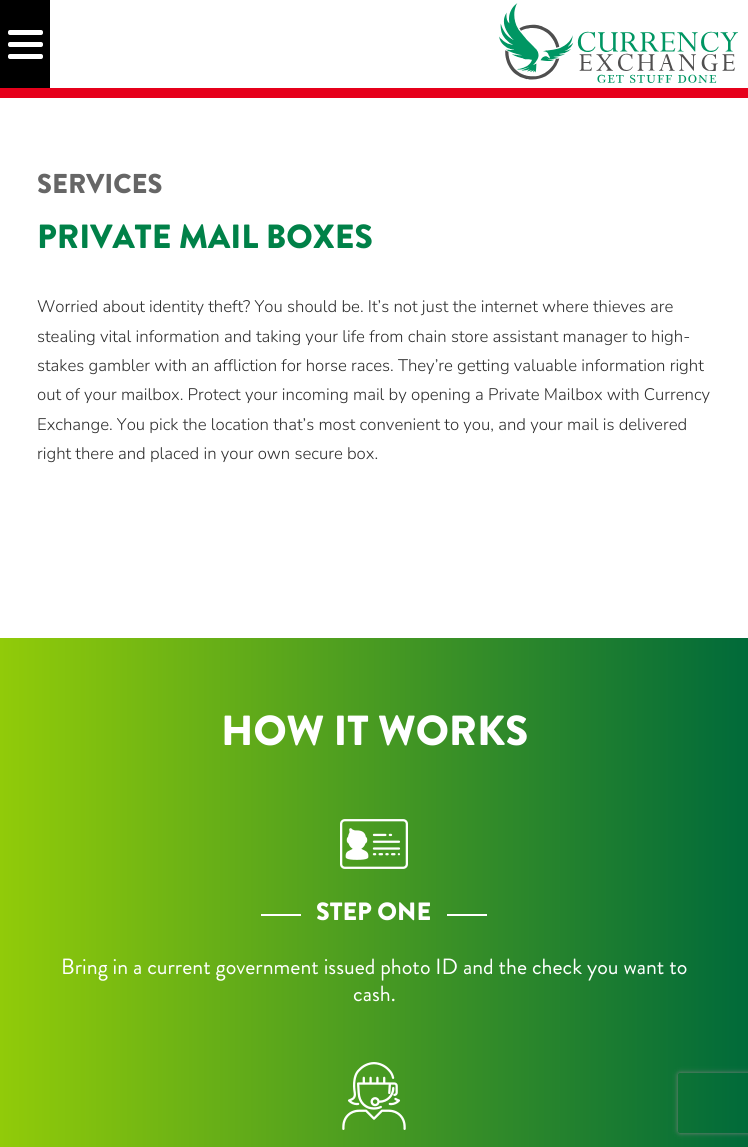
import math
import cairo

surface = cairo.ImageSurface(cairo.FORMAT_RGB24, 748, 1147)
ctx = cairo.Context(surface)
options = cairo.FontOptions()
options.set_hint_metrics(cairo.HINT_METRICS_OFF)
options.set_hint_style(cairo.HINT_STYLE_NONE)
ctx.set_font_options(options)
ctx.set_miter_limit(4)


def round_rect(x, y, w, h, r):
    ctx.new_sub_path()
    for i, (u, v) in enumerate([(x + w - r, y + h - r), (x + r, y + h - r), (x + r, y + r), (x + w - r, y + r)]):
        ctx.arc(u, v, r, i * math.pi / 2, (i + 1) * math.pi / 2)
    ctx.close_path()


def shadow(x, y, w, h, r, blur, alpha):
    ctx.push_group_with_content(cairo.CONTENT_ALPHA)
    ctx.set_operator(cairo.OPERATOR_SOURCE)
    for i in range(15, -16, -2):
        e = blur * i / 6
        if min(w, h) + 2 * e > 0:
            ctx.set_source_rgba(0, 0, 0, alpha * math.erfc((i - 1) / 8.5) / 2)
            round_rect(x - e, y - e, w + 2 * e, h + 2 * e, max(0, min(r + e + blur * .6, min(w, h) / 2 + e)))
            ctx.fill()
    ctx.mask(ctx.pop_group())


def picture(path, x, y, w, h):
    ctx.save()
    ctx.set_source_surface(cairo.ImageSurface.create_from_png(path), x, y)
    ctx.rectangle(x, y, w, h)
    ctx.fill()
    ctx.restore()


ctx.set_source_rgb(1, 1, 1)
ctx.paint()
ctx.set_source_rgb(0.902, 0, 0.106)
ctx.rectangle(0, 88, 748, 10)
ctx.fill()
ctx.set_source_rgb(0, 0, 0)
ctx.rectangle(0, 0, 50, 88)
ctx.fill()
ctx.set_source_rgb(1, 1, 1)
round_rect(8, 42, 35, 5, 2)
ctx.fill()
round_rect(8, 30, 35, 5, 2)
ctx.fill()
round_rect(8, 54, 35, 5, 2)
ctx.fill()
picture("img1.png", 499, 3, 239, 80)
ctx.select_font_face("Brandon Grotesque Black")
ctx.set_font_size(27.25)
ctx.set_source_rgb(0.4, 0.4, 0.4)
ctx.move_to(37, 193)
ctx.show_text("SERVICES")
ctx.set_font_size(33.5)
ctx.set_source_rgb(0, 0.506, 0.282)
ctx.move_to(37, 248)
ctx.show_text("PRIVATE MAIL BOXES")
ctx.select_font_face("Nunito Light")
ctx.set_font_size(16.75)
ctx.set_source_rgb(0.176, 0.176, 0.176)
ctx.move_to(37, 312)
ctx.show_text("Worried about identity theft? You should be. It’s not just the internet where thieves are")
ctx.move_to(37, 342)
ctx.show_text("stealing vital information and taking your life from chain store assistant manager to high-")
ctx.move_to(37, 371)
ctx.show_text("stakes gambler with an affliction for horse races. They’re getting valuable information right")
ctx.move_to(37, 400)
ctx.show_text("out of your mailbox. Protect your incoming mail by opening a Private Mailbox with Currency")
ctx.move_to(37, 430)
ctx.show_text("Exchange. You pick the location that’s most convenient to you, and your mail is delivered")
ctx.move_to(37, 459)
ctx.show_text("right there and placed in your own secure box.")
gradient = cairo.LinearGradient(0, 1082, 748, 1082)
gradient.add_color_stop_rgba(0, 0.569, 0.796, 0.035, 1)
gradient.add_color_stop_rgba(1, 0, 0.416, 0.227, 1)
ctx.set_source(gradient)
ctx.rectangle(0, 638, 748, 509)
ctx.fill()
ctx.select_font_face("Brandon Grotesque Black")
ctx.set_font_size(42)
ctx.set_source_rgb(1, 1, 1)
ctx.move_to(221, 745)
ctx.show_text("HOW IT WORKS")
picture("img2.png", 340, 819, 68, 50)
ctx.rectangle(261, 914, 40, 2)
ctx.fill()
ctx.set_font_size(25)
ctx.move_to(316, 920)
ctx.show_text("STEP ONE")
ctx.rectangle(447, 914, 40, 2)
ctx.fill()
ctx.select_font_face("Brandon Grotesque")
ctx.set_font_size(22)
ctx.move_to(61, 974)
ctx.show_text("Bring in a current government issued photo ID and the check you want to")
ctx.move_to(353, 1001)
ctx.show_text("cash.")
picture("img3.png", 342, 1062, 64, 68)
ctx.save()
ctx.set_fill_rule(cairo.FILL_RULE_EVEN_ODD)
ctx.new_path()
ctx.move_to(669, 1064)
ctx.line_to(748, 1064)
ctx.line_to(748, 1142)
ctx.line_to(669, 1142)
ctx.close_path()
ctx.move_to(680, 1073)
ctx.line_to(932, 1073)
ctx.curve_to(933, 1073, 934, 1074, 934, 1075)
ctx.line_to(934, 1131)
ctx.curve_to(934, 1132, 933, 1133, 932, 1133)
ctx.line_to(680, 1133)
ctx.curve_to(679, 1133, 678, 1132, 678, 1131)
ctx.line_to(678, 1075)
ctx.curve_to(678, 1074, 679, 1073, 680, 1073)
ctx.close_path()
ctx.clip()
ctx.set_source_rgb(0.502, 0.502, 0.502)
shadow(678, 1073, 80, 60, 2, 2.5, 1)
ctx.restore()
surface.write_to_png("page.png")
